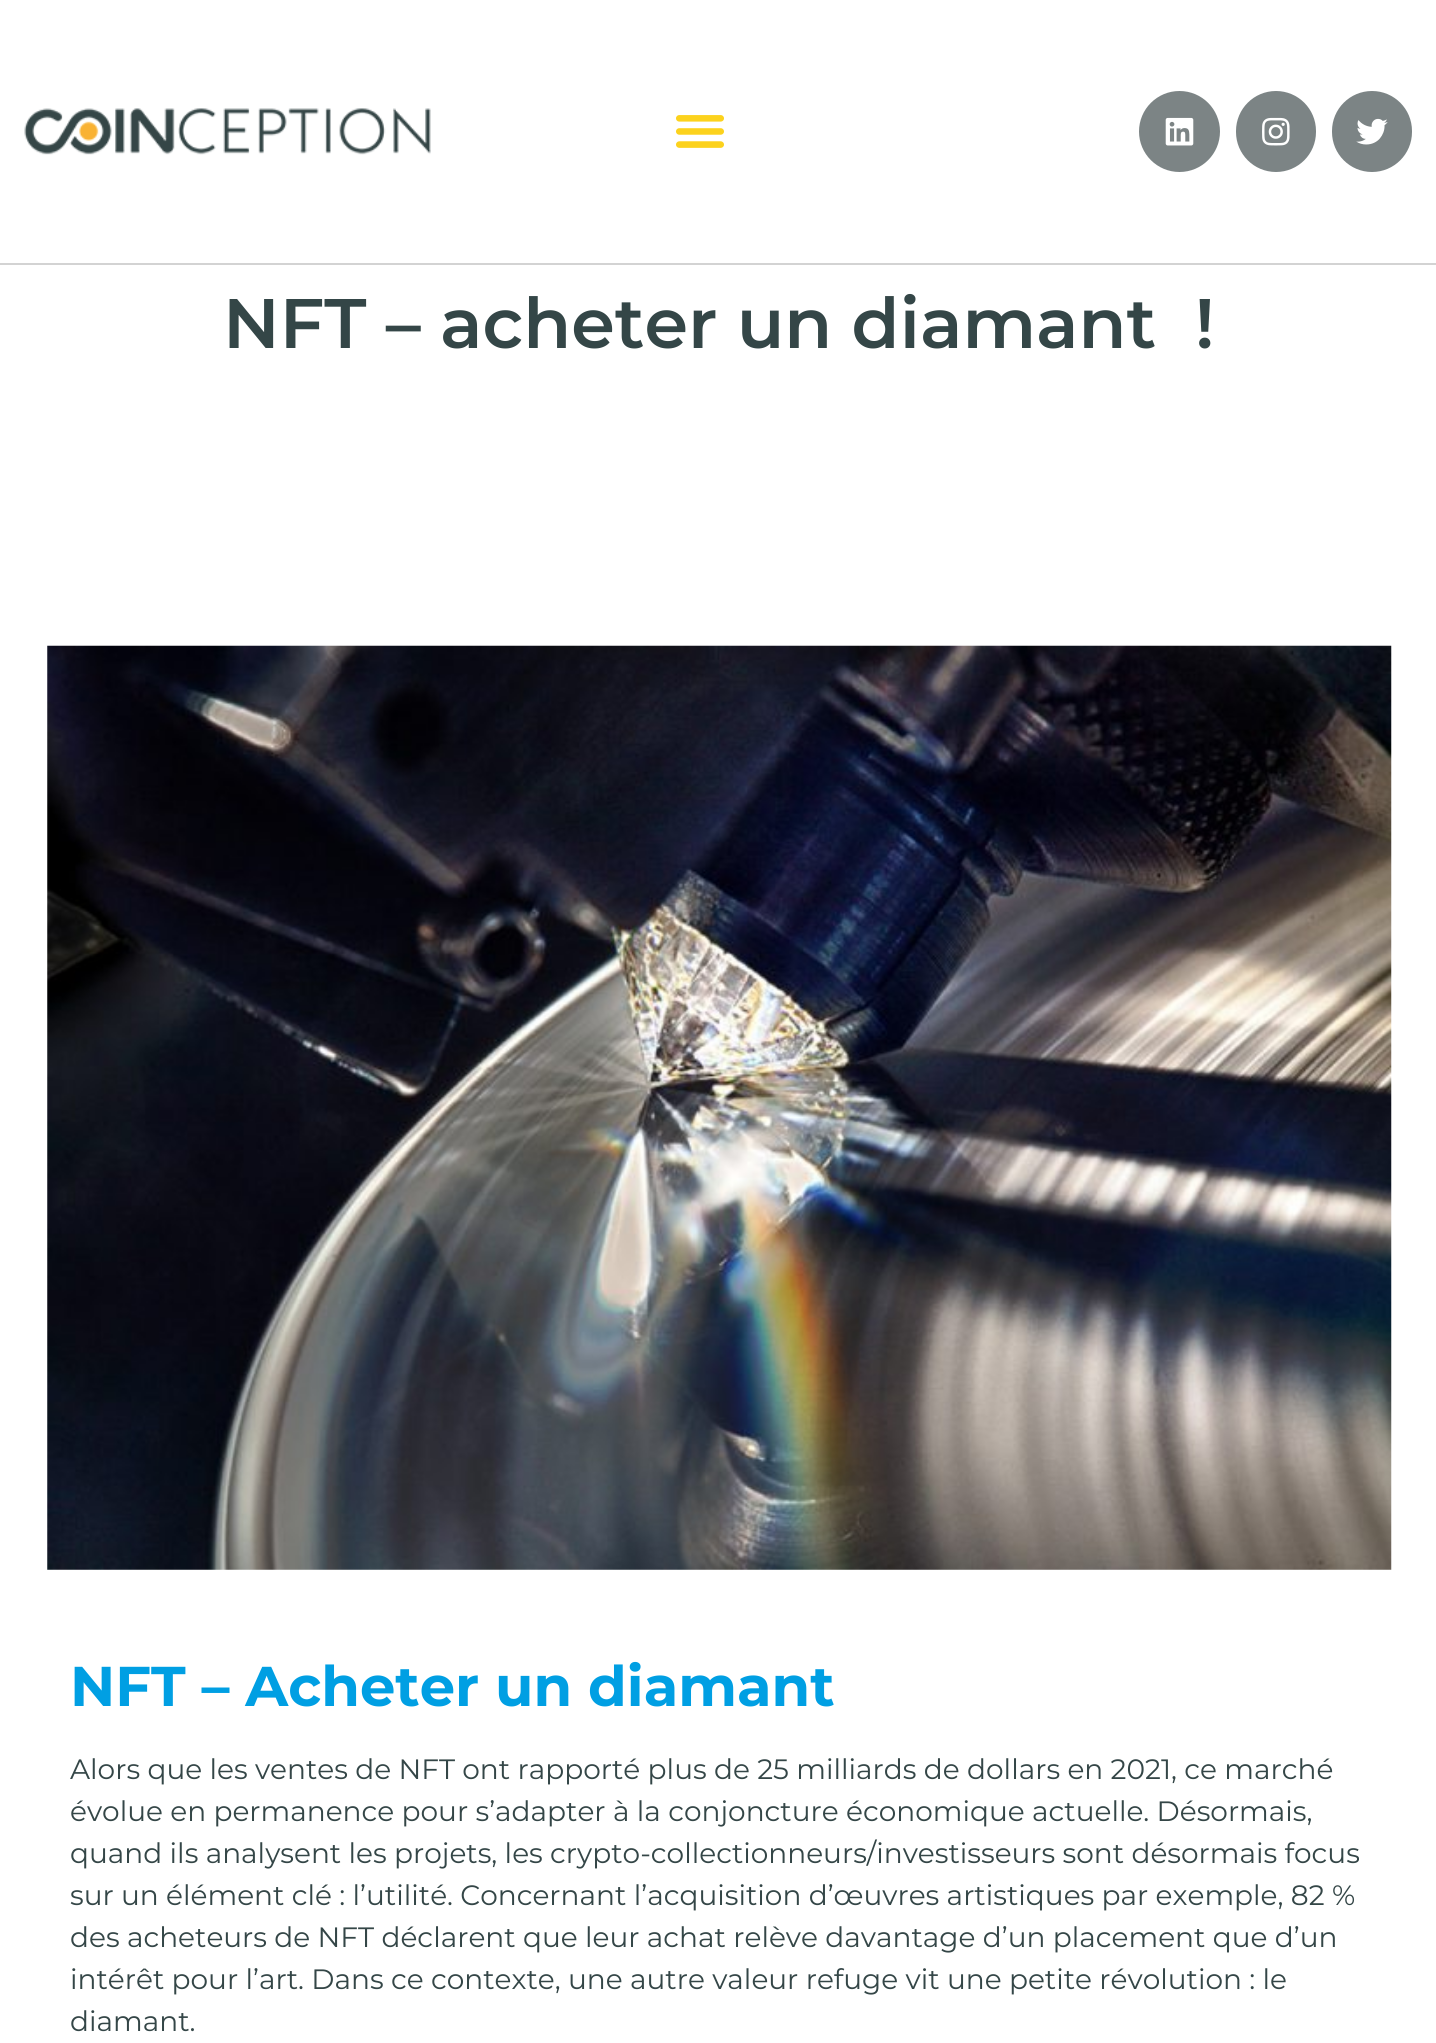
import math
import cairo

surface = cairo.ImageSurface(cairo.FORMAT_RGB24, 1436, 2043)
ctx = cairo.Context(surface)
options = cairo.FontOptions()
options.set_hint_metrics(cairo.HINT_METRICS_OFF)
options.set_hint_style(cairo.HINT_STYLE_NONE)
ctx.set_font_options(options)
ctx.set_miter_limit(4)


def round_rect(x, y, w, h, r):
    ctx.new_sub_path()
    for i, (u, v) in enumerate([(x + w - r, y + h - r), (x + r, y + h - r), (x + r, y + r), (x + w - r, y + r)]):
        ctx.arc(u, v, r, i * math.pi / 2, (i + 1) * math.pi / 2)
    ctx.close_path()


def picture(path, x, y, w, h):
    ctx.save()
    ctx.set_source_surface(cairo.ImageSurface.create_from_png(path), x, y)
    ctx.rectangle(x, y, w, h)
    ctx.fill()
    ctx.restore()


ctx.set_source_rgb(1, 1, 1)
ctx.paint()
ctx.set_source_rgb(0.827, 0.827, 0.827)
ctx.rectangle(0, 263, 1436, 2)
ctx.fill()
picture("img1.png", 24, 108, 407, 47)
picture("img2.png", 676, 115, 48, 33)
ctx.set_source_rgb(0.486, 0.518, 0.522)
ctx.arc(1179.5, 131.5, 40.5, 0, 2 * math.pi)
ctx.fill()
picture("img3.png", 1165, 117, 29, 29)
round_rect(1236, 91, 80, 81, 40)
ctx.fill()
picture("img4.png", 1262, 117, 28, 29)
round_rect(1332, 91, 80, 81, 40)
ctx.fill()
picture("img5.png", 1356, 118, 32, 27)
ctx.select_font_face("Montserrat SemiBold")
ctx.set_font_size(70)
ctx.set_source_rgb(0.204, 0.275, 0.278)
ctx.move_to(223, 348)
ctx.show_text("NFT – acheter un diamant  !")
picture("img6.png", 47, 645, 1345, 925)
ctx.select_font_face("Montserrat", cairo.FONT_SLANT_NORMAL, cairo.FONT_WEIGHT_BOLD)
ctx.set_font_size(56)
ctx.set_source_rgb(0, 0.624, 0.89)
ctx.move_to(70, 1706)
ctx.show_text("NFT – Acheter un diamant")
ctx.select_font_face("Montserrat")
ctx.set_font_size(28)
ctx.set_source_rgb(0.204, 0.275, 0.278)
ctx.move_to(70, 1779)
ctx.show_text("Alors que les ventes de NFT ont rapporté plus de 25 milliards de dollars en 2021, ce marché")
ctx.move_to(70, 1821)
ctx.show_text("évolue en permanence pour s’adapter à la conjoncture économique actuelle. Désormais,")
ctx.move_to(70, 1863)
ctx.show_text("quand ils analysent les projets, les crypto-collectionneurs/investisseurs sont désormais focus")
ctx.move_to(70, 1905)
ctx.show_text("sur un élément clé : l’utilité. Concernant l’acquisition d’œuvres artistiques par exemple, 82 %")
ctx.move_to(70, 1947)
ctx.show_text("des acheteurs de NFT déclarent que leur achat relève davantage d’un placement que d’un")
ctx.move_to(70, 1989)
ctx.show_text("intérêt pour l’art. Dans ce contexte, une autre valeur refuge vit une petite révolution : le")
ctx.move_to(70, 2031)
ctx.show_text("diamant.")
surface.write_to_png("page.png")
